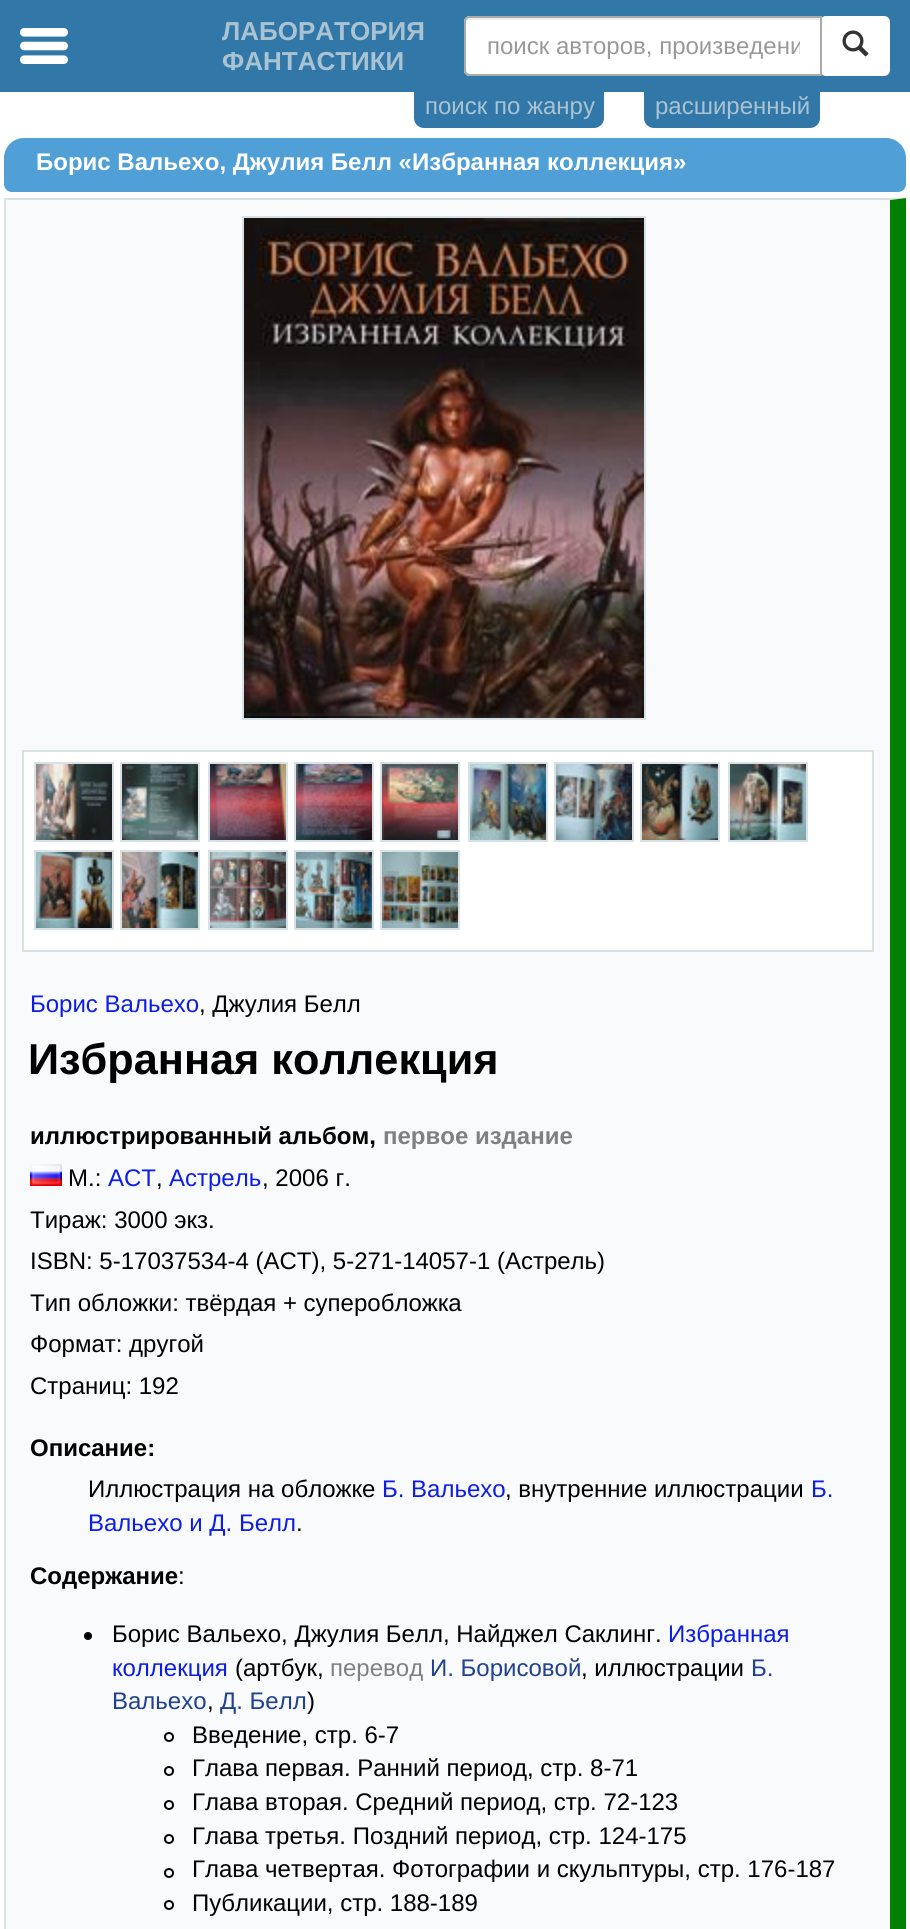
import math
import cairo

surface = cairo.ImageSurface(cairo.FORMAT_RGB24, 910, 1929)
ctx = cairo.Context(surface)
options = cairo.FontOptions()
options.set_hint_metrics(cairo.HINT_METRICS_OFF)
options.set_hint_style(cairo.HINT_STYLE_NONE)
ctx.set_font_options(options)
ctx.set_miter_limit(4)


def round_rect(x, y, w, h, r):
    ctx.new_sub_path()
    for i, (u, v) in enumerate([(x + w - r, y + h - r), (x + r, y + h - r), (x + r, y + r), (x + w - r, y + r)]):
        ctx.arc(u, v, r, i * math.pi / 2, (i + 1) * math.pi / 2)
    ctx.close_path()


def picture(path, x, y, w, h):
    ctx.save()
    ctx.set_source_surface(cairo.ImageSurface.create_from_png(path), x, y)
    ctx.rectangle(x, y, w, h)
    ctx.fill()
    ctx.restore()


ctx.set_source_rgb(1, 1, 1)
ctx.paint()
ctx.set_source_rgb(0.192, 0.471, 0.659)
ctx.rectangle(0, 0, 910, 92)
ctx.fill()
picture("img1.png", 20, 28, 48, 36)
ctx.select_font_face("Liberation Sans", cairo.FONT_SLANT_NORMAL, cairo.FONT_WEIGHT_BOLD)
ctx.set_font_size(26)
ctx.set_source_rgb(0.663, 0.765, 0.827)
ctx.move_to(222, 40)
ctx.show_text("ЛАБОРАТОРИЯ")
ctx.move_to(222, 70)
ctx.show_text("ФАНТАСТИКИ")
ctx.set_source_rgb(1, 1, 1)
round_rect(820, 16, 70, 60, 6)
ctx.fill()
ctx.new_path()
ctx.move_to(470, 16)
ctx.line_to(822, 16)
ctx.line_to(822, 76)
ctx.line_to(470, 76)
ctx.curve_to(466.5, 76, 464, 73.5, 464, 70)
ctx.line_to(464, 22)
ctx.curve_to(464, 18.5, 466.5, 16, 470, 16)
ctx.close_path()
ctx.fill()
ctx.set_source_rgb(0.925, 0.925, 0.925)
ctx.new_path()
ctx.move_to(470, 20)
ctx.line_to(820, 20)
ctx.line_to(820, 18)
ctx.line_to(470, 18)
ctx.curve_to(468, 18, 466, 20, 466, 22)
ctx.line_to(466, 24)
ctx.curve_to(466, 22, 468, 20, 470, 20)
ctx.close_path()
ctx.fill()
ctx.new_path()
ctx.move_to(470, 17)
ctx.line_to(821, 17)
ctx.line_to(821, 75)
ctx.line_to(470, 75)
ctx.curve_to(467, 75, 465, 73, 465, 70)
ctx.line_to(465, 22)
ctx.curve_to(465, 19, 467, 17, 470, 17)
ctx.close_path()
ctx.set_source_rgb(0.667, 0.667, 0.667)
ctx.stroke()
ctx.save()
ctx.rectangle(486, 32, 314, 28)
ctx.clip()
ctx.select_font_face("Liberation Sans")
ctx.set_font_size(24)
ctx.set_source_rgb(0.6, 0.6, 0.6)
ctx.move_to(487, 54)
ctx.show_text("поиск авторов, произведени")
ctx.restore()
picture("img2.png", 842, 30, 27, 27)
ctx.set_source_rgb(0.192, 0.471, 0.659)
round_rect(414, 80, 190, 48, 10)
ctx.fill()
ctx.select_font_face("Liberation Sans")
ctx.set_font_size(24)
ctx.set_source_rgb(0.663, 0.765, 0.827)
ctx.move_to(425, 114)
ctx.show_text("поиск по жанру")
ctx.set_source_rgb(0.192, 0.471, 0.659)
round_rect(644, 80, 176, 48, 10)
ctx.fill()
ctx.set_source_rgb(0.663, 0.765, 0.827)
ctx.move_to(655, 114)
ctx.show_text("расширенный")
ctx.set_source_rgb(0.314, 0.627, 0.843)
ctx.new_path()
ctx.move_to(24, 138)
ctx.line_to(886, 138)
ctx.curve_to(897, 138, 906, 147, 906, 158)
ctx.line_to(906, 184)
ctx.curve_to(906, 188.5, 902.5, 192, 898, 192)
ctx.line_to(12, 192)
ctx.curve_to(7.5, 192, 4, 188.5, 4, 184)
ctx.line_to(4, 158)
ctx.curve_to(4, 147, 13, 138, 24, 138)
ctx.close_path()
ctx.fill()
ctx.select_font_face("Liberation Sans", cairo.FONT_SLANT_NORMAL, cairo.FONT_WEIGHT_BOLD)
ctx.set_source_rgb(1, 1, 1)
ctx.move_to(36, 170)
ctx.show_text("Борис Вальехо, Джулия Белл «Избранная коллекция»")
ctx.set_source_rgb(0.976, 0.98, 0.984)
ctx.rectangle(6, 200, 884, 1729)
ctx.fill()
ctx.set_source_rgb(0.847, 0.882, 0.902)
ctx.new_path()
ctx.move_to(4, 198)
ctx.line_to(906, 198)
ctx.line_to(890, 200)
ctx.line_to(6, 200)
ctx.close_path()
ctx.fill()
ctx.set_source_rgb(0, 0.502, 0)
ctx.new_path()
ctx.move_to(906, 198)
ctx.line_to(906, 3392)
ctx.line_to(890, 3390)
ctx.line_to(890, 200)
ctx.close_path()
ctx.fill()
ctx.set_source_rgb(0.847, 0.882, 0.902)
ctx.rectangle(4, 198, 2, 1731)
ctx.fill()
ctx.rectangle(243, 217, 402, 502)
ctx.stroke()
picture("img3.png", 244, 218, 400, 500)
ctx.set_source_rgb(1, 1, 1)
ctx.rectangle(23, 751, 850, 200)
ctx.fill_preserve()
ctx.set_source_rgb(0.847, 0.882, 0.902)
ctx.stroke()
ctx.rectangle(35, 763, 78, 78)
ctx.stroke()
ctx.rectangle(121, 763, 78, 78)
ctx.stroke()
ctx.rectangle(209, 763, 78, 78)
ctx.stroke()
ctx.rectangle(295, 763, 78, 78)
ctx.stroke()
ctx.rectangle(381, 763, 78, 78)
ctx.stroke()
ctx.rectangle(469, 763, 78, 78)
ctx.stroke()
ctx.rectangle(555, 763, 78, 78)
ctx.stroke()
ctx.rectangle(641, 763, 78, 78)
ctx.stroke()
ctx.rectangle(729, 763, 78, 78)
ctx.stroke()
picture("img4.png", 36, 764, 76, 76)
picture("img5.png", 122, 764, 76, 76)
picture("img6.png", 210, 764, 76, 76)
picture("img7.png", 296, 764, 76, 76)
picture("img8.png", 382, 764, 76, 76)
picture("img9.png", 470, 764, 76, 76)
picture("img10.png", 556, 764, 76, 76)
picture("img11.png", 642, 764, 76, 76)
picture("img12.png", 730, 764, 76, 76)
ctx.rectangle(35, 851, 78, 78)
ctx.stroke()
ctx.rectangle(121, 851, 78, 78)
ctx.stroke()
ctx.rectangle(209, 851, 78, 78)
ctx.stroke()
ctx.rectangle(295, 851, 78, 78)
ctx.stroke()
ctx.rectangle(381, 851, 78, 78)
ctx.stroke()
picture("img13.png", 36, 852, 76, 76)
picture("img14.png", 122, 852, 76, 76)
picture("img15.png", 210, 852, 76, 76)
picture("img16.png", 296, 852, 76, 76)
picture("img17.png", 382, 852, 76, 76)
ctx.select_font_face("Liberation Sans")
ctx.set_source_rgb(0.047, 0.114, 0.914)
ctx.move_to(30, 1012)
ctx.show_text("Борис Вальехо")
ctx.set_source_rgb(0, 0, 0)
ctx.move_to(199, 1012)
ctx.show_text(", Джулия Белл")
ctx.select_font_face("Liberation Sans", cairo.FONT_SLANT_NORMAL, cairo.FONT_WEIGHT_BOLD)
ctx.set_font_size(43.25)
ctx.move_to(28, 1074)
ctx.show_text("Избранная коллекция")
ctx.set_font_size(24)
ctx.move_to(30, 1144)
ctx.show_text("иллюстрированный альбом,")
ctx.set_source_rgb(0.502, 0.502, 0.502)
ctx.move_to(383, 1144)
ctx.show_text("первое издание")
picture("img18.png", 30, 1164, 32, 22)
ctx.select_font_face("Liberation Sans")
ctx.set_source_rgb(0, 0, 0)
ctx.move_to(68, 1186)
ctx.show_text("М.:")
ctx.set_source_rgb(0.047, 0.114, 0.914)
ctx.move_to(108, 1186)
ctx.show_text("АСТ")
ctx.set_source_rgb(0, 0, 0)
ctx.move_to(156, 1186)
ctx.show_text(",")
ctx.set_source_rgb(0.047, 0.114, 0.914)
ctx.move_to(169, 1186)
ctx.show_text("Астрель")
ctx.set_source_rgb(0, 0, 0)
ctx.move_to(262, 1186)
ctx.show_text(", 2006 г.")
ctx.move_to(30, 1228)
ctx.show_text("Тираж: 3000 экз.")
ctx.move_to(30, 1269)
ctx.show_text("ISBN: 5-17037534-4 (АСТ), 5-271-14057-1 (Астрель)")
ctx.move_to(30, 1311)
ctx.show_text("Тип обложки: твёрдая + суперобложка")
ctx.move_to(30, 1352)
ctx.show_text("Формат: другой")
ctx.move_to(30, 1394)
ctx.show_text("Страниц: 192")
ctx.select_font_face("Liberation Sans", cairo.FONT_SLANT_NORMAL, cairo.FONT_WEIGHT_BOLD)
ctx.move_to(30, 1456)
ctx.show_text("Описание:")
ctx.select_font_face("Liberation Sans")
ctx.move_to(88, 1497)
ctx.show_text("Иллюстрация на обложке")
ctx.set_source_rgb(0.047, 0.114, 0.914)
ctx.move_to(382, 1497)
ctx.show_text("Б. Вальехо")
ctx.set_source_rgb(0, 0, 0)
ctx.move_to(505, 1497)
ctx.show_text(", внутренние иллюстрации")
ctx.set_source_rgb(0.047, 0.114, 0.914)
ctx.move_to(811, 1497)
ctx.show_text("Б.")
ctx.move_to(88, 1531)
ctx.show_text("Вальехо и Д. Белл")
ctx.set_source_rgb(0, 0, 0)
ctx.move_to(296, 1531)
ctx.show_text(".")
ctx.select_font_face("Liberation Sans", cairo.FONT_SLANT_NORMAL, cairo.FONT_WEIGHT_BOLD)
ctx.move_to(30, 1584)
ctx.show_text("Содержание")
ctx.select_font_face("Liberation Sans")
ctx.move_to(178, 1584)
ctx.show_text(":")
ctx.new_path()
ctx.arc(88, 1636, 4, 0, 2 * math.pi)
ctx.fill()
ctx.move_to(112, 1642)
ctx.show_text("Борис Вальехо, Джулия Белл, Найджел Саклинг.")
ctx.set_source_rgb(0.047, 0.114, 0.914)
ctx.move_to(668, 1642)
ctx.show_text("Избранная")
ctx.move_to(112, 1676)
ctx.show_text("коллекция")
ctx.set_source_rgb(0, 0, 0)
ctx.move_to(235, 1676)
ctx.show_text("(артбук,")
ctx.set_source_rgb(0.502, 0.502, 0.502)
ctx.move_to(330, 1676)
ctx.show_text("перевод")
ctx.set_source_rgb(0.125, 0.251, 0.565)
ctx.move_to(430, 1676)
ctx.show_text("И. Борисовой")
ctx.set_source_rgb(0, 0, 0)
ctx.move_to(581, 1676)
ctx.show_text(", иллюстрации")
ctx.set_source_rgb(0.125, 0.251, 0.565)
ctx.move_to(751, 1676)
ctx.show_text("Б.")
ctx.move_to(112, 1709)
ctx.show_text("Вальехо")
ctx.set_source_rgb(0, 0, 0)
ctx.move_to(207, 1709)
ctx.show_text(",")
ctx.set_source_rgb(0.125, 0.251, 0.565)
ctx.move_to(220, 1709)
ctx.show_text("Д. Белл")
ctx.set_source_rgb(0, 0, 0)
ctx.move_to(307, 1709)
ctx.show_text(")")
ctx.new_path()
ctx.arc(169, 1737, 4, 0, 2 * math.pi)
ctx.stroke()
ctx.move_to(192, 1743)
ctx.show_text("Введение, стр. 6-7")
ctx.new_path()
ctx.arc(169, 1771, 4, 0, 2 * math.pi)
ctx.stroke()
ctx.move_to(192, 1776)
ctx.show_text("Глава первая. Ранний период, стр. 8-71")
ctx.new_path()
ctx.arc(169, 1805, 4, 0, 2 * math.pi)
ctx.stroke()
ctx.move_to(192, 1810)
ctx.show_text("Глава вторая. Средний период, стр. 72-123")
ctx.new_path()
ctx.arc(169, 1839, 4, 0, 2 * math.pi)
ctx.stroke()
ctx.move_to(192, 1844)
ctx.show_text("Глава третья. Поздний период, стр. 124-175")
ctx.new_path()
ctx.arc(169, 1873, 4, 0, 2 * math.pi)
ctx.stroke()
ctx.move_to(192, 1877)
ctx.show_text("Глава четвертая. Фотографии и скульптуры, стр. 176-187")
ctx.new_path()
ctx.arc(169, 1905, 4, 0, 2 * math.pi)
ctx.stroke()
ctx.move_to(192, 1911)
ctx.show_text("Публикации, стр. 188-189")
surface.write_to_png("page.png")
